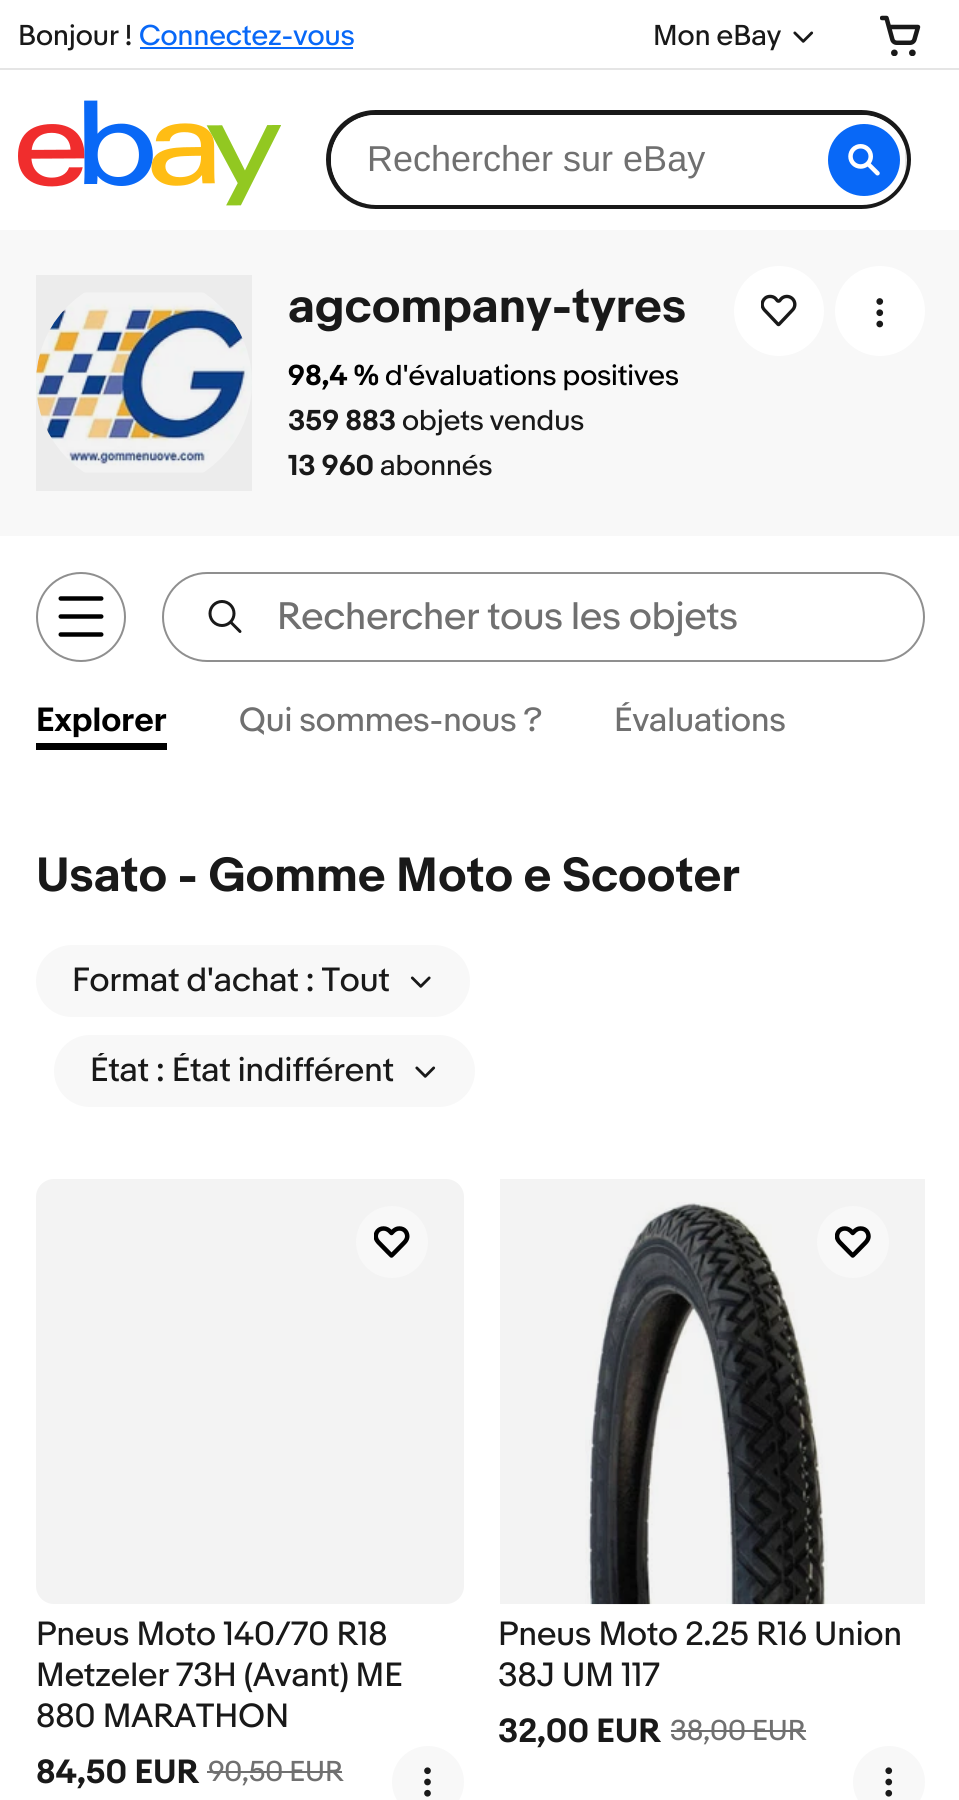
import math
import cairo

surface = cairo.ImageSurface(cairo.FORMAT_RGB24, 959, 1800)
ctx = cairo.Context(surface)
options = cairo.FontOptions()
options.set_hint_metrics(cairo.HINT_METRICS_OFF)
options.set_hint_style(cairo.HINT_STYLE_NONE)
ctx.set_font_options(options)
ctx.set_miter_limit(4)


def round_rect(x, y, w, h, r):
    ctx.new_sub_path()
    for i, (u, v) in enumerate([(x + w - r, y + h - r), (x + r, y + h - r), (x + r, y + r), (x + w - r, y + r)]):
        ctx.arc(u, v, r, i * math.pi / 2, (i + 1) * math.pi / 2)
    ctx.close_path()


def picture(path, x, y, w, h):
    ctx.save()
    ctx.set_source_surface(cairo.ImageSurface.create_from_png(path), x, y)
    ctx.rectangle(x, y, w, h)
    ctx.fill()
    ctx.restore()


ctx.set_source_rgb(1, 1, 1)
ctx.paint()
ctx.select_font_face("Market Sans")
ctx.set_font_size(27)
ctx.set_source_rgb(0.098, 0.098, 0.098)
ctx.move_to(18, 45)
ctx.show_text("Bonjour !")
ctx.set_source_rgb(0.035, 0.408, 0.965)
ctx.move_to(139, 45)
ctx.show_text("Connectez-vous")
ctx.rectangle(140, 47, 213, 2)
ctx.fill()
ctx.set_source_rgb(0.098, 0.098, 0.098)
ctx.move_to(653, 45)
ctx.show_text("Mon eBay")
picture("img1.png", 793, 31, 21, 12)
picture("img2.png", 880, 15, 41, 41)
picture("img3.png", 18, 100, 263, 106)
round_rect(328.5, 112.5, 580, 94, 47)
ctx.set_line_width(5)
ctx.stroke()
ctx.save()
round_rect(331, 115, 576, 90, 45)
ctx.clip()
ctx.set_source_rgb(0.898, 0.898, 0.898)
ctx.rectangle(905, 147, 2, 26)
ctx.fill()
ctx.set_source_rgb(1, 1, 1)
ctx.new_path()
ctx.move_to(376, 115)
ctx.line_to(905, 115)
ctx.line_to(905, 205)
ctx.line_to(376, 205)
ctx.curve_to(351, 205, 331, 185, 331, 160)
ctx.curve_to(331, 135, 351, 115, 376, 115)
ctx.close_path()
ctx.fill()
ctx.restore()
ctx.select_font_face("Liberation Sans")
ctx.set_font_size(36)
ctx.set_source_rgb(0.439, 0.439, 0.439)
ctx.move_to(367, 171)
ctx.show_text("Rechercher sur eBay")
ctx.set_source_rgb(0.035, 0.408, 0.965)
ctx.new_path()
ctx.arc(864, 160, 35, 0, 2 * math.pi)
ctx.fill_preserve()
ctx.set_line_width(2)
ctx.stroke()
picture("img4.png", 848, 144, 32, 32)
ctx.set_source_rgb(0.898, 0.898, 0.898)
ctx.rectangle(0, 68, 959, 2)
ctx.fill()
ctx.set_source_rgb(0.969, 0.969, 0.969)
ctx.rectangle(0, 230, 959, 306)
ctx.fill()
picture("img5.png", 36, 292, 216, 181)
ctx.set_source_rgba(0, 0, 0, 0.05)
ctx.rectangle(36, 275, 216, 216)
ctx.fill()
ctx.select_font_face("Market Sans", cairo.FONT_SLANT_NORMAL, cairo.FONT_WEIGHT_BOLD)
ctx.set_font_size(45)
ctx.set_source_rgb(0.098, 0.098, 0.098)
ctx.move_to(288, 322)
ctx.show_text("agcompany-tyres")
ctx.set_source_rgb(1, 1, 1)
ctx.new_path()
ctx.arc(779, 311, 45, 0, 2 * math.pi)
ctx.fill()
picture("img6.png", 761, 294, 36, 33)
ctx.arc(880, 311, 45, 0, 2 * math.pi)
ctx.fill()
picture("img7.png", 876, 298, 8, 30)
ctx.set_font_size(27)
ctx.set_source_rgb(0, 0, 0)
ctx.move_to(288, 385)
ctx.show_text("98,4 %")
ctx.select_font_face("Market Sans")
ctx.move_to(385, 385)
ctx.show_text("d'évaluations positives")
ctx.select_font_face("Market Sans", cairo.FONT_SLANT_NORMAL, cairo.FONT_WEIGHT_BOLD)
ctx.set_source_rgb(0.098, 0.098, 0.098)
ctx.move_to(288, 430)
ctx.show_text("359 883")
ctx.select_font_face("Market Sans")
ctx.move_to(402, 430)
ctx.show_text("objets vendus")
ctx.select_font_face("Market Sans", cairo.FONT_SLANT_NORMAL, cairo.FONT_WEIGHT_BOLD)
ctx.move_to(288, 475)
ctx.show_text("13 960")
ctx.select_font_face("Market Sans")
ctx.move_to(380, 475)
ctx.show_text("abonnés")
ctx.new_path()
ctx.arc(81, 617, 44, 0, 2 * math.pi)
ctx.set_source_rgb(0.561, 0.561, 0.561)
ctx.stroke()
picture("img8.png", 58, 596, 46, 41)
round_rect(163, 573, 761, 88, 44)
ctx.stroke()
picture("img9.png", 208, 600, 34, 33)
ctx.set_font_size(36)
ctx.set_source_rgb(0.439, 0.439, 0.439)
ctx.move_to(277, 629)
ctx.show_text("Rechercher tous les objets")
ctx.set_source_rgb(0, 0, 0)
ctx.rectangle(36, 743, 131, 7)
ctx.fill()
ctx.select_font_face("Market Sans", cairo.FONT_SLANT_NORMAL, cairo.FONT_WEIGHT_BOLD)
ctx.set_font_size(31.5)
ctx.move_to(36, 731)
ctx.show_text("Explorer")
ctx.select_font_face("Market Sans")
ctx.set_source_rgb(0.439, 0.439, 0.439)
ctx.move_to(239, 731)
ctx.show_text("Qui sommes-nous ?")
ctx.move_to(614, 731)
ctx.show_text("Évaluations")
ctx.select_font_face("Market Sans", cairo.FONT_SLANT_NORMAL, cairo.FONT_WEIGHT_BOLD)
ctx.set_font_size(45)
ctx.set_source_rgb(0.098, 0.098, 0.098)
ctx.move_to(36, 891)
ctx.show_text("Usato - Gomme Moto e Scooter")
ctx.set_source_rgb(0.969, 0.969, 0.969)
round_rect(36, 945, 434, 72, 36)
ctx.fill()
ctx.select_font_face("Market Sans")
ctx.set_font_size(31.5)
ctx.set_source_rgb(0.098, 0.098, 0.098)
ctx.move_to(72, 991)
ctx.show_text("Format d'achat : Tout")
picture("img10.png", 410, 976, 21, 12)
ctx.set_source_rgb(0.969, 0.969, 0.969)
round_rect(54, 1035, 421, 72, 36)
ctx.fill()
ctx.save()
ctx.rectangle(90, 1053, 304, 36)
ctx.clip()
ctx.set_source_rgb(0.098, 0.098, 0.098)
ctx.move_to(90, 1081)
ctx.show_text("État : État indifférent")
ctx.restore()
picture("img11.png", 415, 1066, 21, 12)
ctx.set_source_rgb(0.953, 0.953, 0.953)
round_rect(36, 1179, 428, 425, 18)
ctx.fill()
ctx.set_source_rgb(0.969, 0.969, 0.969)
ctx.arc(392, 1242, 36, 0, 2 * math.pi)
ctx.fill()
picture("img12.png", 374, 1226, 36, 32)
ctx.set_source_rgb(0.098, 0.098, 0.098)
ctx.move_to(36, 1645)
ctx.show_text("Pneus Moto 140/70 R18")
ctx.move_to(36, 1686)
ctx.show_text("Metzeler 73H (Avant) ME")
ctx.move_to(36, 1727)
ctx.show_text("880 MARATHON")
ctx.select_font_face("Market Sans", cairo.FONT_SLANT_NORMAL, cairo.FONT_WEIGHT_BOLD)
ctx.move_to(36, 1783)
ctx.show_text("84,50 EUR")
ctx.select_font_face("Market Sans")
ctx.set_font_size(27)
ctx.set_source_rgb(0.439, 0.439, 0.439)
ctx.move_to(208, 1781)
ctx.show_text("90,50 EUR")
ctx.rectangle(207, 1771, 135, 2)
ctx.fill()
ctx.set_source_rgb(0.969, 0.969, 0.969)
ctx.arc(428, 1782, 36, 0, 2 * math.pi)
ctx.fill()
picture("img13.png", 424, 1767, 7, 30)
picture("img15.png", 585, 1202, 243, 403)
ctx.set_source_rgba(0, 0, 0, 0.05)
ctx.rectangle(500, 1179, 425, 425)
ctx.fill()
ctx.set_source_rgb(0.969, 0.969, 0.969)
ctx.arc(853, 1242, 36, 0, 2 * math.pi)
ctx.fill()
picture("img14.png", 835, 1226, 36, 32)
ctx.set_font_size(31.5)
ctx.set_source_rgb(0.098, 0.098, 0.098)
ctx.move_to(498, 1645)
ctx.show_text("Pneus Moto 2.25 R16 Union")
ctx.move_to(498, 1686)
ctx.show_text("38J UM 117")
ctx.select_font_face("Market Sans", cairo.FONT_SLANT_NORMAL, cairo.FONT_WEIGHT_BOLD)
ctx.move_to(498, 1742)
ctx.show_text("32,00 EUR")
ctx.select_font_face("Market Sans")
ctx.set_font_size(27)
ctx.set_source_rgb(0.439, 0.439, 0.439)
ctx.move_to(670, 1740)
ctx.show_text("38,00 EUR")
ctx.rectangle(671, 1730, 135, 2)
ctx.fill()
ctx.set_source_rgb(0.969, 0.969, 0.969)
ctx.arc(889, 1782, 36, 0, 2 * math.pi)
ctx.fill()
picture("img16.png", 885, 1767, 8, 30)
surface.write_to_png("page.png")
